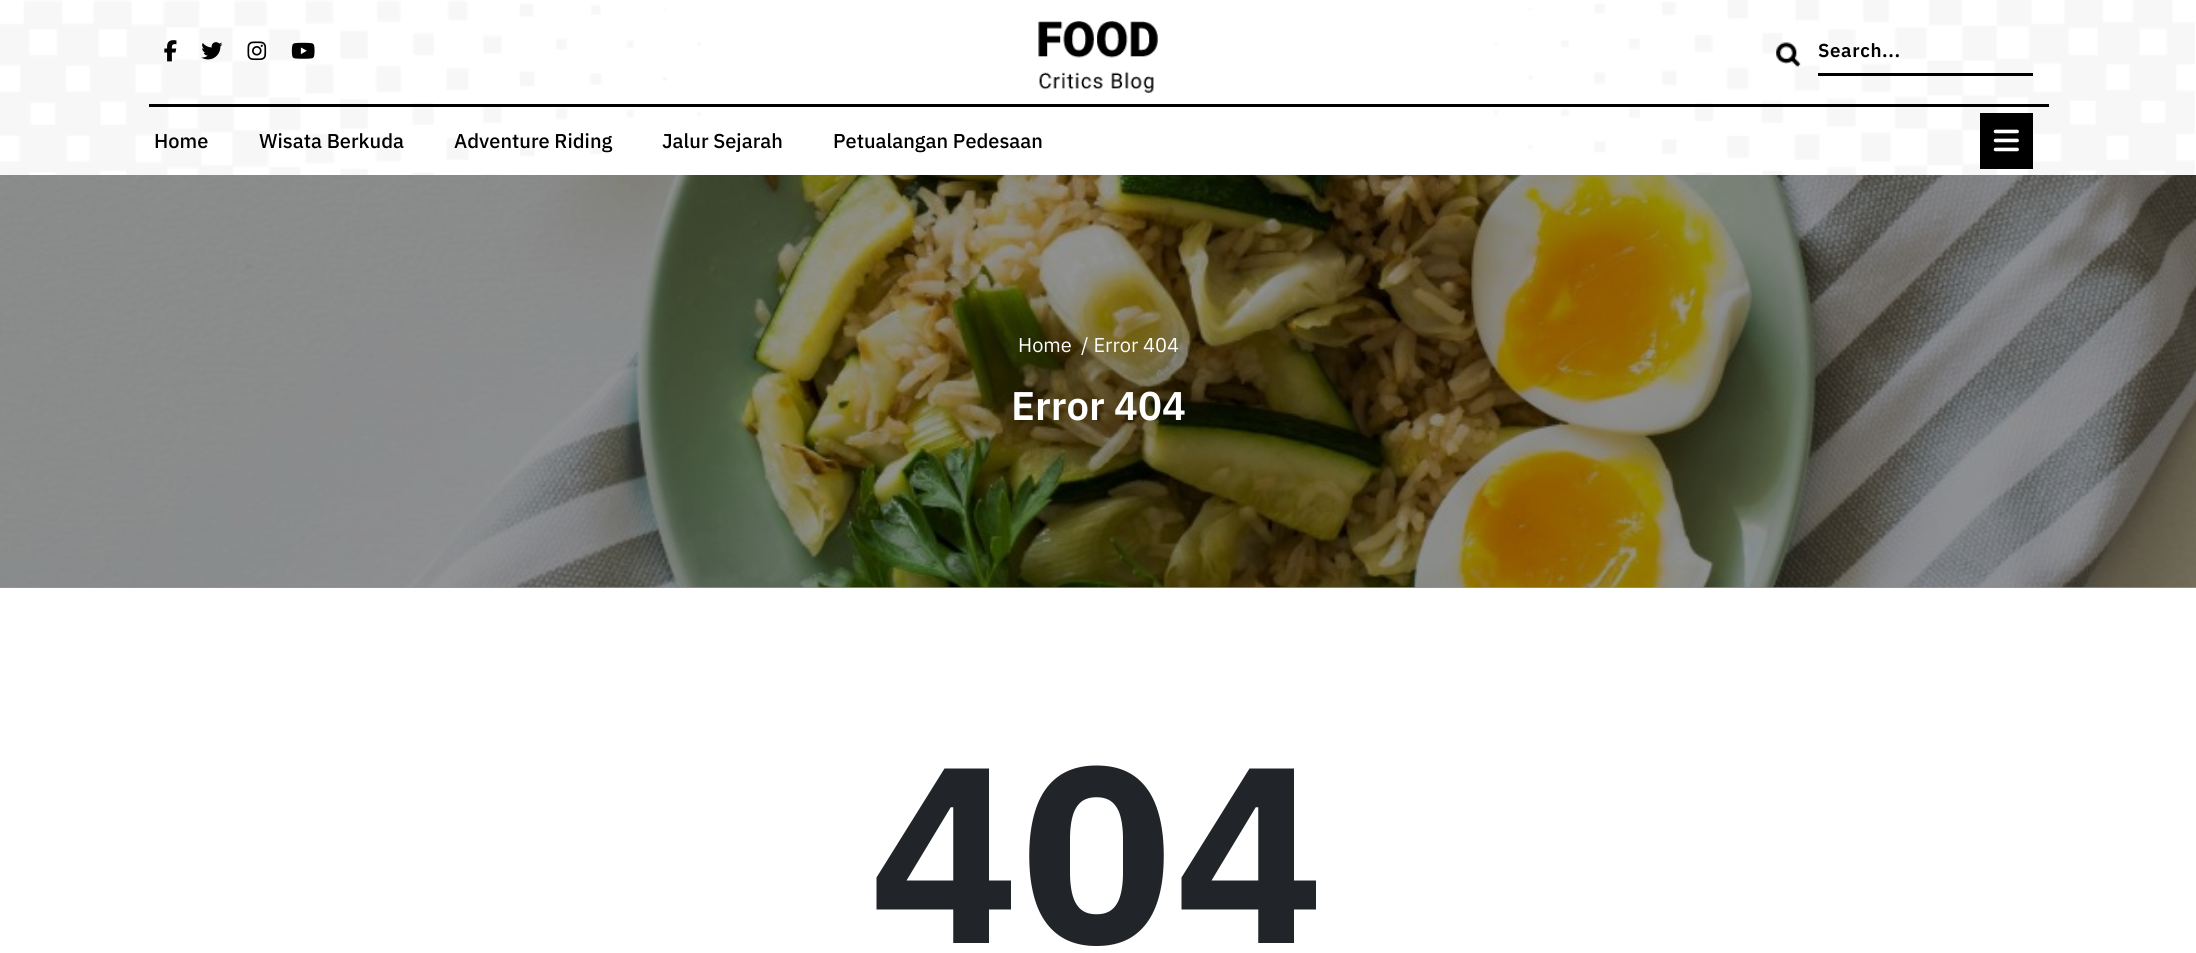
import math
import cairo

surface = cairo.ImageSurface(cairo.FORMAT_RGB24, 2196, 953)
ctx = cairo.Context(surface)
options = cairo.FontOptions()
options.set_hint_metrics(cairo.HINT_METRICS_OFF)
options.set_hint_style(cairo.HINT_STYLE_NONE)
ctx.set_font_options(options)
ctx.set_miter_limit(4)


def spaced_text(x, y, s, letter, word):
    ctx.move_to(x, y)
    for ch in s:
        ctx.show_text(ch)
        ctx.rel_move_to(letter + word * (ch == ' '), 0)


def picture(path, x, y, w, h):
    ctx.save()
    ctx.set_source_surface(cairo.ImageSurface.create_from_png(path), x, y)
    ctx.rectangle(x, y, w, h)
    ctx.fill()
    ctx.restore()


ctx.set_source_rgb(1, 1, 1)
ctx.paint()
ctx.set_source_rgb(0.58, 0.58, 0.58)
ctx.rectangle(0, 587, 2196, 1)
ctx.fill()
ctx.set_source_rgb(0, 0, 0)
ctx.rectangle(149, 104, 1900, 3)
ctx.fill()
picture("img1.png", 0, 0, 2195, 175)
picture("img2.png", 164, 40, 13, 22)
picture("img3.png", 201, 42, 22, 18)
picture("img4.png", 247, 41, 20, 20)
picture("img5.png", 291, 42, 24, 17)
picture("img6.png", 1038, 21, 120, 72)
picture("img7.png", 1776, 42, 25, 25)
ctx.rectangle(1818, 73, 215, 3)
ctx.fill()
ctx.select_font_face("IBM Plex Sans SemiBold")
ctx.set_font_size(18.75)
spaced_text(1818, 57, "Search...", 0.6, 0)
ctx.select_font_face("IBM Plex Sans Medium")
ctx.set_font_size(20)
ctx.move_to(154, 148)
ctx.show_text("Home")
ctx.move_to(259, 148)
ctx.show_text("Wisata Berkuda")
ctx.move_to(454, 148)
ctx.show_text("Adventure Riding")
ctx.move_to(662, 148)
ctx.show_text("Jalur Sejarah")
ctx.move_to(833, 148)
ctx.show_text("Petualangan Pedesaan")
ctx.rectangle(1980, 113, 53, 56)
ctx.fill()
picture("img8.png", 1993, 129, 26, 23)
picture("img9.png", 0, 175, 2196, 413)
ctx.select_font_face("IBM Plex Sans")
ctx.set_source_rgb(1, 1, 1)
ctx.move_to(1018, 352)
ctx.show_text("Home")
ctx.move_to(1081, 352)
ctx.show_text("/ Error 404")
ctx.select_font_face("IBM Plex Sans SemiBold")
ctx.set_font_size(40)
ctx.move_to(1011, 420)
ctx.show_text("Error 404")
ctx.select_font_face("IBM Plex Sans", cairo.FONT_SLANT_NORMAL, cairo.FONT_WEIGHT_BOLD)
ctx.set_font_size(250)
ctx.set_source_rgb(0.129, 0.145, 0.161)
spaced_text(869, 943, "404", 2.5, 0)
surface.write_to_png("page.png")
